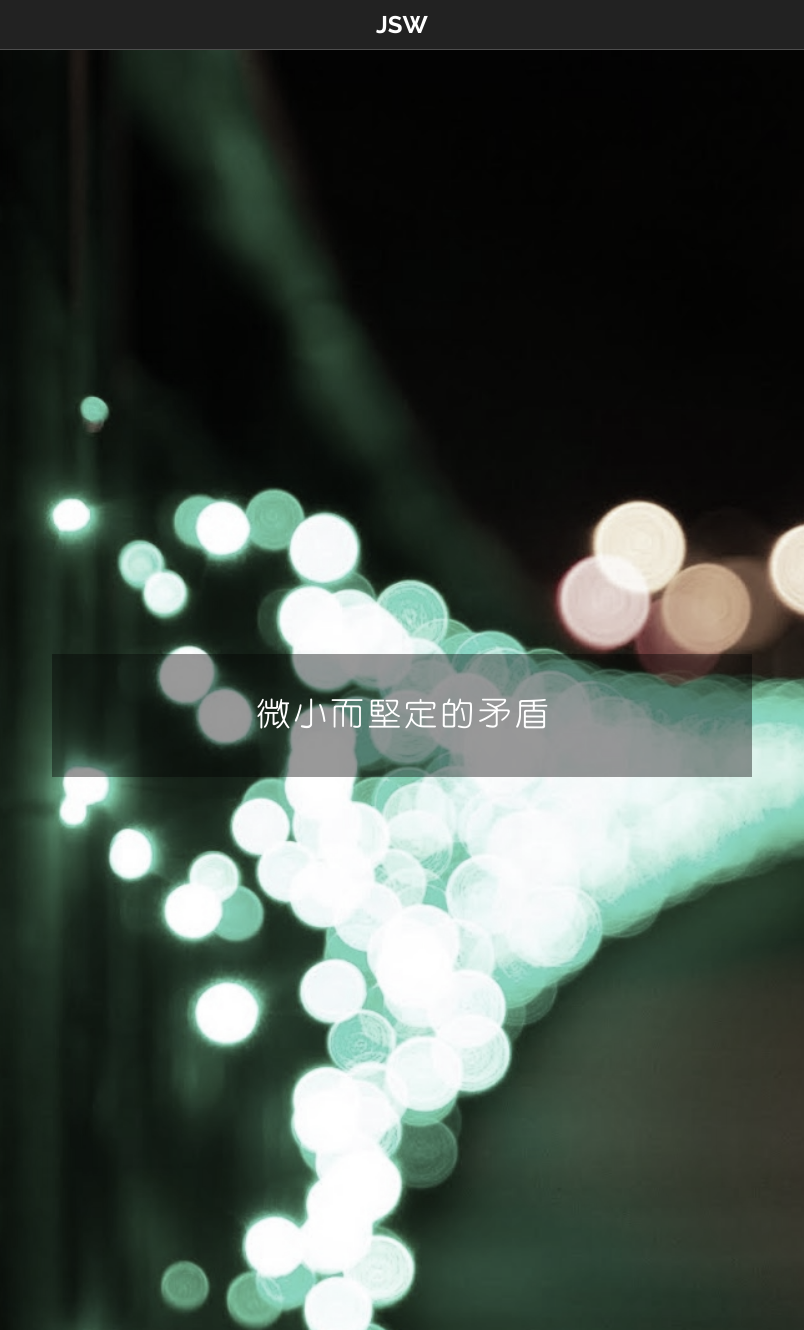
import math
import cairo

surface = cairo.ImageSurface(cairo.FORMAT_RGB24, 804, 1330)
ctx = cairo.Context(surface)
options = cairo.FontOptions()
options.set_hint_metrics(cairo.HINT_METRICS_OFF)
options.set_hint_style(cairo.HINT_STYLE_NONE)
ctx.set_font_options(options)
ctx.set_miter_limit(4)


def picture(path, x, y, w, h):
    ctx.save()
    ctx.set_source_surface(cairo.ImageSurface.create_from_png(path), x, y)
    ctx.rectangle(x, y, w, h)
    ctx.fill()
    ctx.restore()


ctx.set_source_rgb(0.133, 0.133, 0.133)
ctx.paint()
ctx.set_source_rgb(0.306, 0.306, 0.306)
ctx.rectangle(0, 49, 804, 1)
ctx.fill()
ctx.select_font_face("Raleway", cairo.FONT_SLANT_NORMAL, cairo.FONT_WEIGHT_BOLD)
ctx.set_font_size(24)
ctx.set_source_rgb(1, 1, 1)
ctx.move_to(376, 33)
ctx.show_text("JSW")
picture("img1.png", 0, 50, 804, 1280)
ctx.set_source_rgba(0, 0, 0, 0.4)
ctx.rectangle(52, 654, 700, 123)
ctx.fill()
ctx.select_font_face("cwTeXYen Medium")
ctx.set_font_size(40)
ctx.set_source_rgb(1, 1, 1)
ctx.move_to(255, 727)
ctx.show_text("微小而堅定的矛盾")
surface.write_to_png("page.png")
